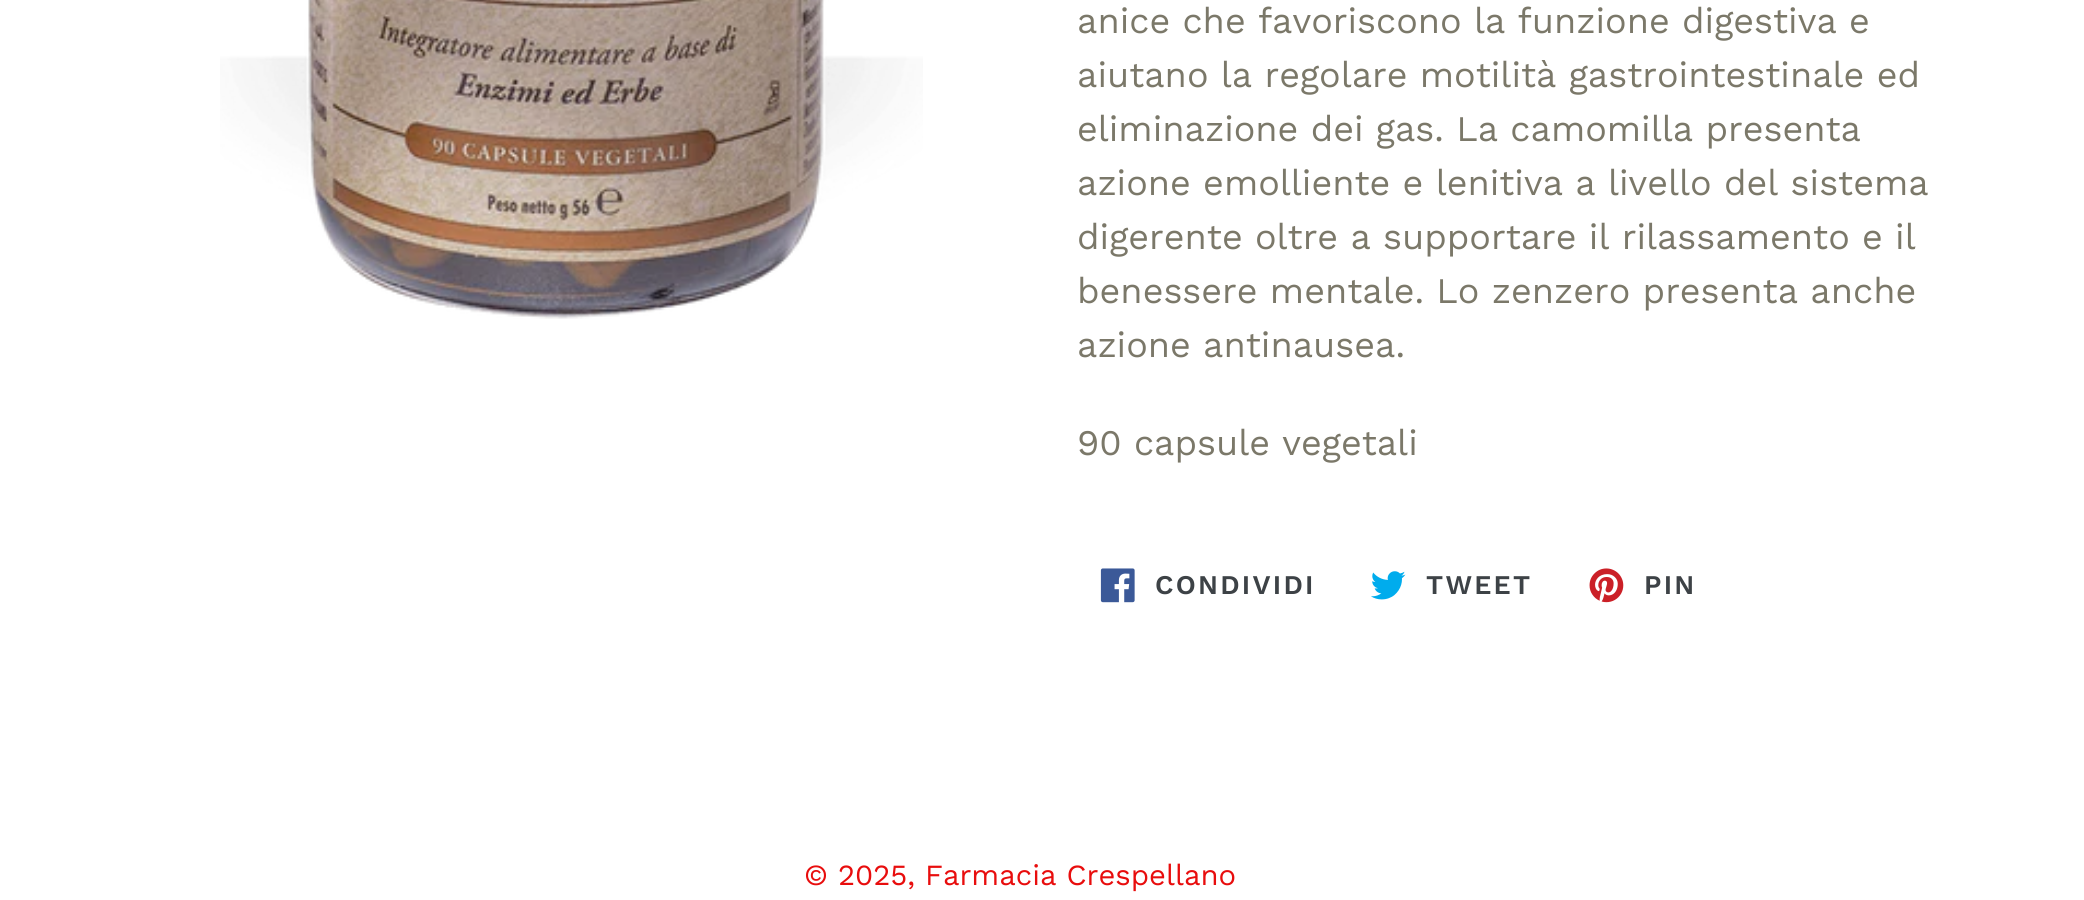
import math
import cairo

surface = cairo.ImageSurface(cairo.FORMAT_RGB24, 2084, 900)
ctx = cairo.Context(surface)
options = cairo.FontOptions()
options.set_hint_metrics(cairo.HINT_METRICS_OFF)
options.set_hint_style(cairo.HINT_STYLE_NONE)
ctx.set_font_options(options)
ctx.set_miter_limit(4)


def spaced_text(x, y, s, letter, word):
    ctx.move_to(x, y)
    for ch in s:
        ctx.show_text(ch)
        ctx.rel_move_to(letter + word * (ch == ' '), 0)


def picture(path, x, y, w, h):
    ctx.save()
    ctx.set_source_surface(cairo.ImageSurface.create_from_png(path), x, y)
    ctx.rectangle(x, y, w, h)
    ctx.fill()
    ctx.restore()


ctx.set_source_rgb(1, 1, 1)
ctx.paint()
picture("img1.png", 220, 0, 703, 319)
ctx.select_font_face("Work Sans")
ctx.set_font_size(36)
ctx.set_source_rgb(0.482, 0.471, 0.412)
ctx.move_to(1077, 33)
ctx.show_text("anice che favoriscono la funzione digestiva e")
ctx.move_to(1077, 87)
ctx.show_text("aiutano la regolare motilità gastrointestinale ed")
ctx.move_to(1077, 141)
ctx.show_text("eliminazione dei gas. La camomilla presenta")
ctx.move_to(1077, 195)
ctx.show_text("azione emolliente e lenitiva a livello del sistema")
ctx.move_to(1077, 249)
ctx.show_text("digerente oltre a supportare il rilassamento e il")
ctx.move_to(1077, 303)
ctx.show_text("benessere mentale. Lo zenzero presenta anche")
ctx.move_to(1077, 357)
ctx.show_text("azione antinausea.")
ctx.move_to(1077, 455)
ctx.show_text("90 capsule vegetali")
picture("img2.png", 1100, 568, 35, 35)
ctx.select_font_face("Work Sans SemiBold")
ctx.set_font_size(27)
ctx.set_source_rgb(0.239, 0.259, 0.275)
spaced_text(1155, 594, "CONDIVIDI", 2.25, 0)
picture("img3.png", 1371, 571, 35, 29)
spaced_text(1426, 594, "TWEET", 2.25, 0)
picture("img4.png", 1589, 568, 35, 35)
spaced_text(1644, 594, "PIN", 2.25, 0)
ctx.select_font_face("Work Sans")
ctx.set_font_size(29.25)
ctx.set_source_rgb(0.91, 0.051, 0.051)
ctx.move_to(804, 885)
ctx.show_text("© 2025, Farmacia Crespellano")
surface.write_to_png("page.png")
